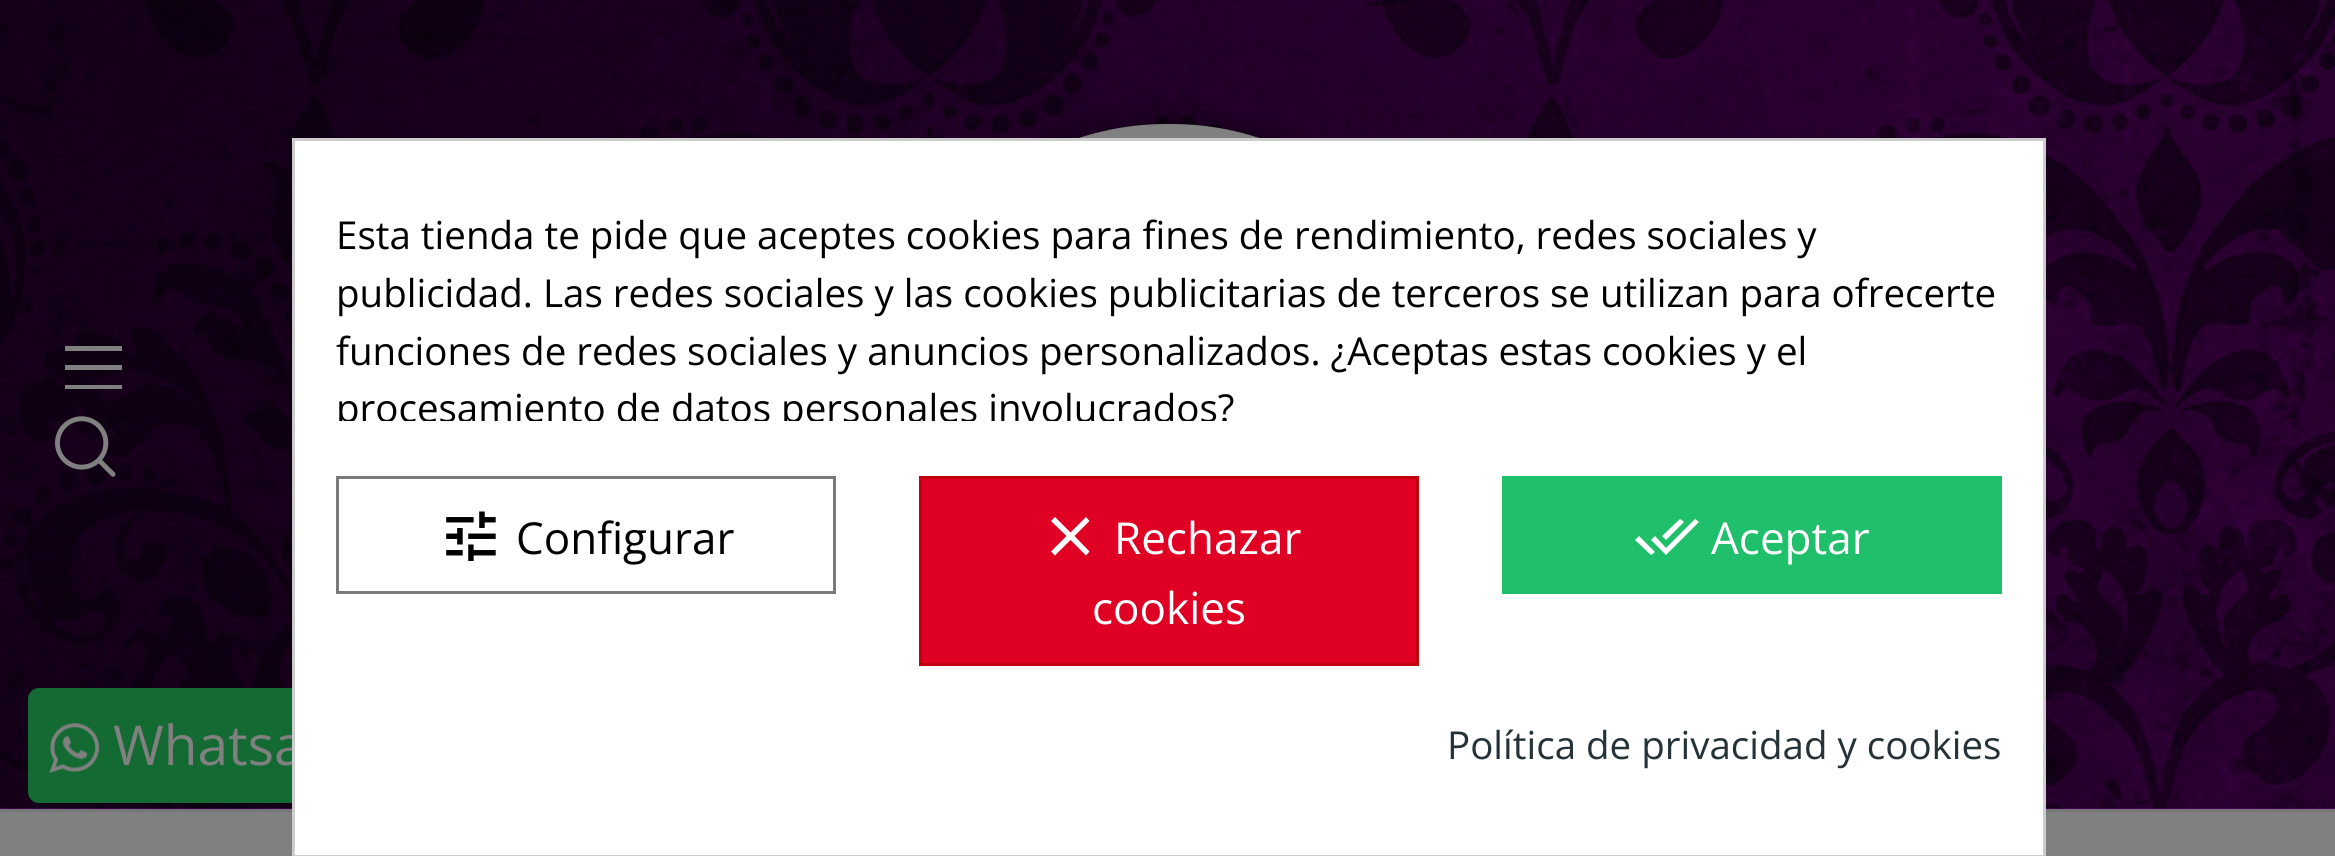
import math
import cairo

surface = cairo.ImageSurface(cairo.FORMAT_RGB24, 2335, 856)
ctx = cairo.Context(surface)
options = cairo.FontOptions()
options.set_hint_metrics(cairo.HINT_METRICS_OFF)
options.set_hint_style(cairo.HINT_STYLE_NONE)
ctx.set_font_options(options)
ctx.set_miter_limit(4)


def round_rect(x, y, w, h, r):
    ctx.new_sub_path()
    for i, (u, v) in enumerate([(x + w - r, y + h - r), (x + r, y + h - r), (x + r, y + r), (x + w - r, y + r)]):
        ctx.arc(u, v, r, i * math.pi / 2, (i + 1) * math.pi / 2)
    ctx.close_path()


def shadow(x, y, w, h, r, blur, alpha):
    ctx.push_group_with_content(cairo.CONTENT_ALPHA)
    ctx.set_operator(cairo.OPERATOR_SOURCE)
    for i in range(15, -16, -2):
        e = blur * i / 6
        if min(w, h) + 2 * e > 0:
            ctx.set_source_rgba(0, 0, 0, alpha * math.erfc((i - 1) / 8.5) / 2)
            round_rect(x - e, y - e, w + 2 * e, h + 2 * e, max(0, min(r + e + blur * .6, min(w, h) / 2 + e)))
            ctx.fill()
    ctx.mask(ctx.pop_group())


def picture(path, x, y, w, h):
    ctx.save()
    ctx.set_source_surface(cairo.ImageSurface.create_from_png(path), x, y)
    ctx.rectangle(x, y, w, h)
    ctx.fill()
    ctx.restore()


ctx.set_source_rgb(0.502, 0.502, 0.502)
ctx.paint()
ctx.set_source_rgb(0.463, 0.463, 0.463)
ctx.rectangle(0, 809, 2335, 3)
ctx.fill()
ctx.set_source_rgb(0.353, 0, 0.459)
ctx.rectangle(0, 808, 2335, 1)
ctx.fill()
picture("img1.png", 0, 0, 2335, 809)
ctx.set_source_rgb(0.502, 0.502, 0.502)
ctx.new_path()
ctx.move_to(65, 346)
ctx.line_to(65, 351)
ctx.line_to(122, 351)
ctx.line_to(122, 346)
ctx.close_path()
ctx.move_to(65, 365)
ctx.line_to(65, 370)
ctx.line_to(122, 370)
ctx.line_to(122, 365)
ctx.close_path()
ctx.move_to(65, 385)
ctx.line_to(65, 389)
ctx.line_to(122, 389)
ctx.line_to(122, 385)
ctx.close_path()
ctx.fill()
picture("img2.png", 55, 416, 61, 61)
ctx.set_source_rgb(0, 0, 0)
shadow(886, 124, 566, 561, 280.5, 14, 0.5)
ctx.set_source_rgb(0.502, 0.502, 0.502)
round_rect(886, 124, 566, 561, 280.5)
ctx.fill()
ctx.set_source_rgb(0.075, 0.416, 0.2)
round_rect(28, 688, 687, 115, 11)
ctx.fill()
picture("img3.png", 49, 723, 50, 50)
ctx.select_font_face("Open Sans")
ctx.set_font_size(55)
ctx.set_source_rgb(0.502, 0.502, 0.502)
ctx.move_to(113, 765)
ctx.show_text("Whatsa")
ctx.set_source_rgb(1, 1, 1)
ctx.rectangle(293.5, 139.5, 1751, 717)
ctx.fill_preserve()
ctx.set_source_rgb(0.8, 0.8, 0.8)
ctx.set_line_width(3)
ctx.stroke()
ctx.set_font_size(38.5)
ctx.set_source_rgb(0, 0, 0)
ctx.move_to(336, 249)
ctx.show_text("Esta tienda te pide que aceptes cookies para fines de rendimiento, redes sociales y")
ctx.move_to(336, 307)
ctx.show_text("publicidad. Las redes sociales y las cookies publicitarias de terceros se utilizan para ofrecerte")
ctx.move_to(336, 365)
ctx.show_text("funciones de redes sociales y anuncios personalizados. ¿Aceptas estas cookies y el")
ctx.save()
ctx.rectangle(336, 206, 1666, 215)
ctx.clip()
ctx.move_to(336, 422)
ctx.show_text("procesamiento de datos personales involucrados?")
ctx.restore()
ctx.rectangle(337.5, 477.5, 497, 115)
ctx.set_source_rgb(0.478, 0.478, 0.478)
ctx.stroke()
picture("img4.png", 446, 511, 50, 50)
ctx.set_font_size(44)
ctx.set_source_rgb(0, 0, 0)
ctx.move_to(516, 554)
ctx.show_text("Configurar")
ctx.set_source_rgb(0.875, 0, 0.137)
ctx.rectangle(920.5, 477.5, 497, 187)
ctx.fill_preserve()
ctx.set_source_rgb(0.753, 0, 0.047)
ctx.stroke()
ctx.set_source_rgb(1, 1, 1)
ctx.new_path()
ctx.move_to(1089.5, 521)
ctx.line_to(1074.5, 536)
ctx.line_to(1089.5, 551.5)
ctx.line_to(1086, 555.5)
ctx.line_to(1070.5, 540)
ctx.line_to(1055, 555.5)
ctx.line_to(1051, 551.5)
ctx.line_to(1066.5, 536)
ctx.line_to(1051, 521)
ctx.line_to(1055, 517)
ctx.line_to(1070.5, 532.5)
ctx.line_to(1086, 517)
ctx.close_path()
ctx.fill()
ctx.move_to(1114, 554)
ctx.show_text("Rechazar")
ctx.move_to(1092, 624)
ctx.show_text("cookies")
ctx.set_source_rgb(0.125, 0.749, 0.42)
ctx.rectangle(1502, 476, 500, 118)
ctx.fill()
ctx.set_source_rgb(1, 1, 1)
ctx.new_path()
ctx.move_to(1635, 540)
ctx.line_to(1639, 536)
ctx.line_to(1655, 552)
ctx.line_to(1651, 555)
ctx.close_path()
ctx.move_to(1695, 519)
ctx.line_to(1699, 522)
ctx.line_to(1666, 555)
ctx.line_to(1651, 540)
ctx.line_to(1655, 536)
ctx.line_to(1666, 548)
ctx.close_path()
ctx.move_to(1684, 522)
ctx.line_to(1666, 540)
ctx.line_to(1662, 536)
ctx.line_to(1680, 519)
ctx.close_path()
ctx.fill()
ctx.move_to(1711, 554)
ctx.show_text("Aceptar")
ctx.set_font_size(38.5)
ctx.set_source_rgb(0.145, 0.196, 0.216)
ctx.move_to(1447, 759)
ctx.show_text("Política de privacidad y cookies")
surface.write_to_png("page.png")
